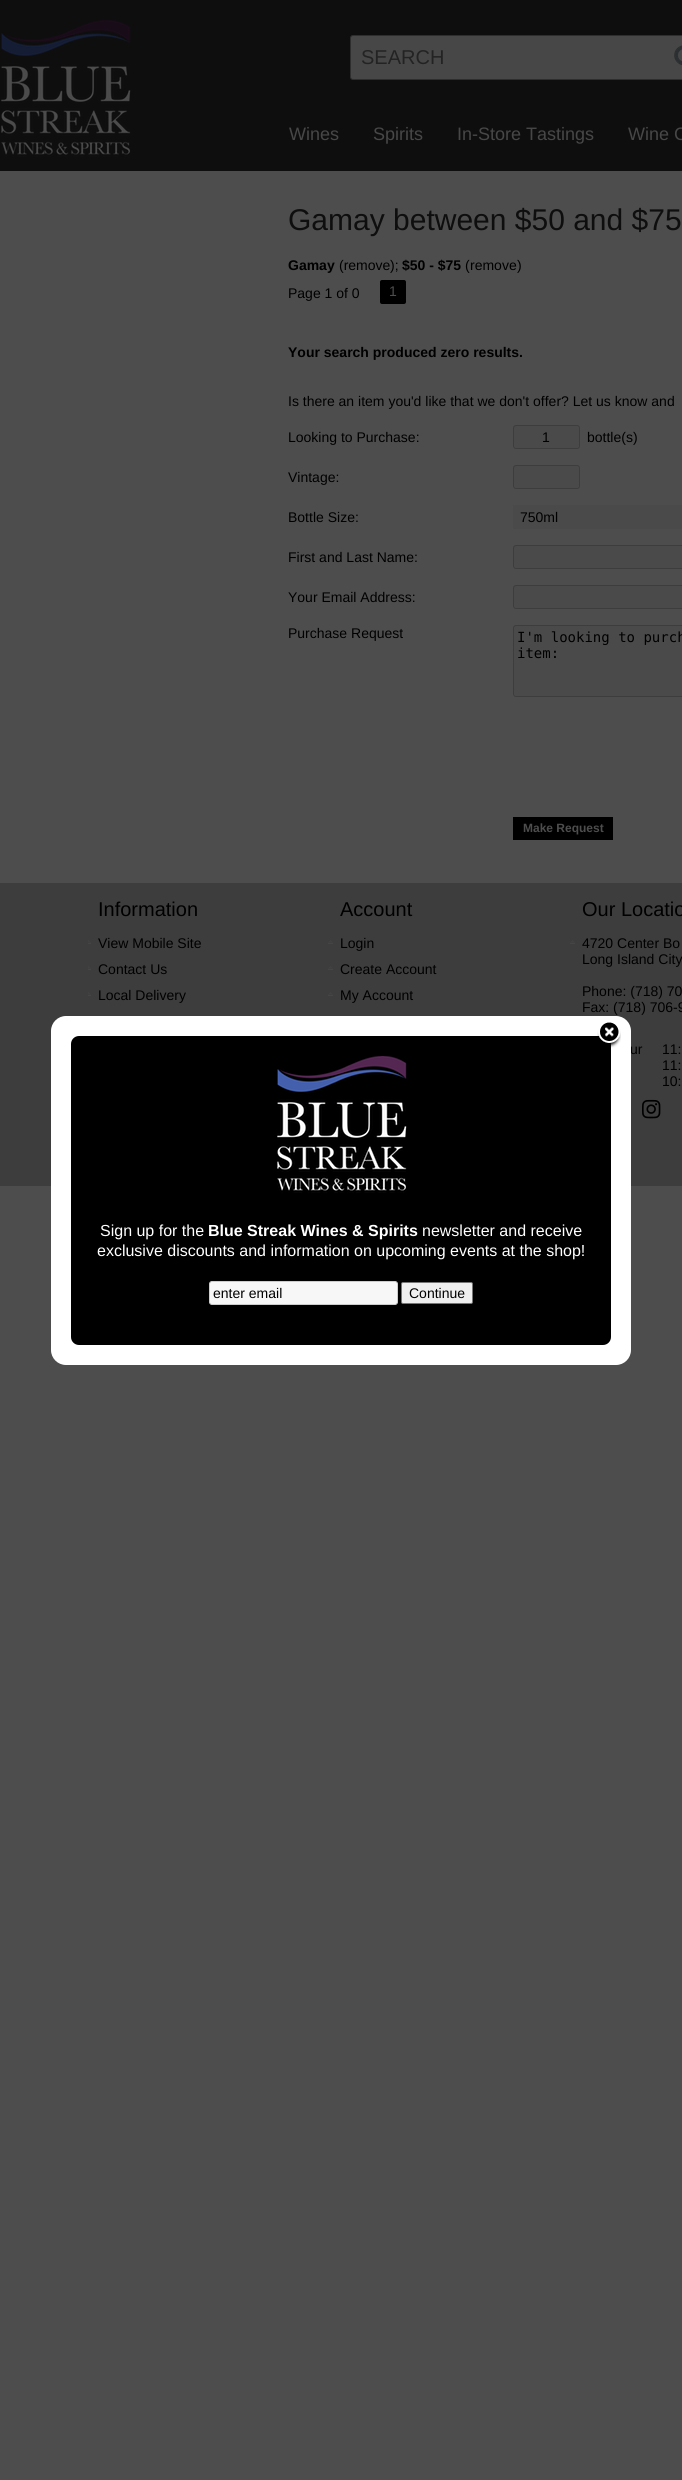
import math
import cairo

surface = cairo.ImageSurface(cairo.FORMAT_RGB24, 682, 2480)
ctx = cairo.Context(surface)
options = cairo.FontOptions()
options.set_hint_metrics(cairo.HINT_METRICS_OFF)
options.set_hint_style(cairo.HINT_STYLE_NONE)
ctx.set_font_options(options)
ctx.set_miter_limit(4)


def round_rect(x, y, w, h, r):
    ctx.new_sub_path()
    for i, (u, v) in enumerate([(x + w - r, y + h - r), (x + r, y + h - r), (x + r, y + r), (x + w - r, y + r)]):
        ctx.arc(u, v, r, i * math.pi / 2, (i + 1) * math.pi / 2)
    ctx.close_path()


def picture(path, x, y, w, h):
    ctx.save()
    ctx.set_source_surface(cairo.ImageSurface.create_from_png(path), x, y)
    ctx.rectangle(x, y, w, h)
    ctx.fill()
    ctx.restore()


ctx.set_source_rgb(0.302, 0.302, 0.302)
ctx.paint()
ctx.set_source_rgb(0.055, 0.055, 0.055)
ctx.rectangle(0, 0, 682, 171)
ctx.fill()
picture("img1.png", 1, 20, 130, 137)
ctx.set_source_rgb(0.278, 0.278, 0.278)
round_rect(350.5, 35.5, 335, 44, 2.5)
ctx.fill_preserve()
ctx.set_source_rgb(0.18, 0.18, 0.18)
ctx.set_line_width(1)
ctx.stroke()
ctx.select_font_face("Liberation Sans")
ctx.set_font_size(20)
ctx.set_source_rgb(0.137, 0.137, 0.137)
ctx.move_to(361, 64)
ctx.show_text("SEARCH")
picture("img2.png", 674, 45, 8, 21)
ctx.set_font_size(18)
ctx.set_source_rgb(0.278, 0.278, 0.278)
ctx.move_to(289, 140)
ctx.show_text("Wines")
ctx.move_to(373, 140)
ctx.show_text("Spirits")
ctx.move_to(457, 140)
ctx.show_text("In-Store Tastings")
ctx.move_to(628, 140)
ctx.show_text("Wine C")
ctx.set_font_size(30)
ctx.set_source_rgb(0.055, 0.055, 0.055)
ctx.move_to(288, 230)
ctx.show_text("Gamay between $50 and $75")
ctx.select_font_face("Liberation Sans", cairo.FONT_SLANT_NORMAL, cairo.FONT_WEIGHT_BOLD)
ctx.set_font_size(14)
ctx.set_source_rgb(0, 0, 0)
ctx.move_to(288, 270)
ctx.show_text("Gamay")
ctx.select_font_face("Liberation Sans")
ctx.move_to(339, 270)
ctx.show_text("(remove")
ctx.move_to(390, 270)
ctx.show_text(");")
ctx.select_font_face("Liberation Sans", cairo.FONT_SLANT_NORMAL, cairo.FONT_WEIGHT_BOLD)
ctx.move_to(402, 270)
ctx.show_text("$50 - $75")
ctx.select_font_face("Liberation Sans")
ctx.move_to(465, 270)
ctx.show_text("(")
ctx.move_to(517, 270)
ctx.show_text(")")
ctx.move_to(470, 270)
ctx.show_text("remove")
ctx.move_to(288, 298)
ctx.show_text("Page 1 of 0")
round_rect(380, 280, 26, 24, 2)
ctx.fill()
ctx.set_source_rgb(0.302, 0.302, 0.302)
ctx.move_to(389, 296)
ctx.show_text("1")
ctx.select_font_face("Liberation Sans", cairo.FONT_SLANT_NORMAL, cairo.FONT_WEIGHT_BOLD)
ctx.set_source_rgb(0, 0, 0)
ctx.move_to(288, 357)
ctx.show_text("Your search produced zero results.")
ctx.select_font_face("Liberation Sans")
ctx.move_to(288, 406)
ctx.show_text("Is there an item you'd like that we don't offer? Let us know and")
ctx.move_to(288, 442)
ctx.show_text("Looking to Purchase:")
ctx.set_source_rgb(0.29, 0.29, 0.29)
round_rect(513.5, 425.5, 66, 23, 2.5)
ctx.fill_preserve()
ctx.set_source_rgb(0.239, 0.239, 0.239)
ctx.stroke()
ctx.set_source_rgb(0, 0, 0)
ctx.move_to(542, 442)
ctx.show_text("1")
ctx.move_to(587, 442)
ctx.show_text("bottle(s)")
ctx.move_to(288, 482)
ctx.show_text("Vintage:")
ctx.set_source_rgb(0.29, 0.29, 0.29)
round_rect(513.5, 465.5, 66, 23, 2.5)
ctx.fill_preserve()
ctx.set_source_rgb(0.239, 0.239, 0.239)
ctx.stroke()
ctx.set_source_rgb(0, 0, 0)
ctx.move_to(288, 522)
ctx.show_text("Bottle Size:")
ctx.set_source_rgb(0.29, 0.29, 0.29)
ctx.rectangle(513, 505, 169, 24)
ctx.fill()
ctx.set_source_rgb(0, 0, 0)
ctx.move_to(520, 522)
ctx.show_text("750ml")
ctx.move_to(288, 562)
ctx.show_text("First and Last Name:")
ctx.set_source_rgb(0.29, 0.29, 0.29)
round_rect(513.5, 545.5, 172, 23, 2.5)
ctx.fill_preserve()
ctx.set_source_rgb(0.239, 0.239, 0.239)
ctx.stroke()
ctx.set_source_rgb(0, 0, 0)
ctx.move_to(288, 602)
ctx.show_text("Your Email Address:")
ctx.set_source_rgb(0.29, 0.29, 0.29)
round_rect(513.5, 585.5, 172, 23, 2.5)
ctx.fill_preserve()
ctx.set_source_rgb(0.239, 0.239, 0.239)
ctx.stroke()
ctx.set_source_rgb(0, 0, 0)
ctx.move_to(288, 638)
ctx.show_text("Purchase Request")
ctx.set_source_rgb(0.29, 0.29, 0.29)
round_rect(513.5, 625.5, 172, 71, 2.5)
ctx.fill_preserve()
ctx.set_source_rgb(0.239, 0.239, 0.239)
ctx.stroke()
ctx.select_font_face("DejaVu Sans Mono")
ctx.set_source_rgb(0, 0, 0)
ctx.move_to(517, 642)
ctx.show_text("I'm looking to purch")
ctx.move_to(517, 658)
ctx.show_text("item:")
ctx.rectangle(513, 817, 100, 23)
ctx.fill()
ctx.select_font_face("Liberation Sans", cairo.FONT_SLANT_NORMAL, cairo.FONT_WEIGHT_BOLD)
ctx.set_font_size(12)
ctx.set_source_rgb(0.302, 0.302, 0.302)
ctx.move_to(523, 832)
ctx.show_text("Make Request")
ctx.set_source_rgb(0.239, 0.239, 0.239)
ctx.rectangle(0, 883, 682, 303)
ctx.fill()
ctx.select_font_face("Liberation Sans")
ctx.set_font_size(20)
ctx.set_source_rgb(0, 0, 0)
ctx.move_to(98, 916)
ctx.show_text("Information")
picture("img3.png", 88, 940, 3, 4)
ctx.set_font_size(14)
ctx.move_to(98, 948)
ctx.show_text("View Mobile Site")
picture("img3.png", 88, 966, 3, 4)
ctx.move_to(98, 974)
ctx.show_text("Contact Us")
picture("img3.png", 88, 992, 3, 4)
ctx.move_to(98, 1000)
ctx.show_text("Local Delivery")
ctx.set_font_size(20)
ctx.move_to(340, 916)
ctx.show_text("Account")
picture("img4.png", 328, 940, 5, 4)
ctx.set_font_size(14)
ctx.move_to(340, 948)
ctx.show_text("Login")
picture("img4.png", 328, 966, 5, 4)
ctx.move_to(340, 974)
ctx.show_text("Create Account")
picture("img4.png", 328, 992, 5, 4)
ctx.move_to(340, 1000)
ctx.show_text("My Account")
ctx.set_font_size(20)
ctx.move_to(582, 916)
ctx.show_text("Our Locatio")
picture("img4.png", 570, 940, 5, 4)
ctx.set_font_size(14)
ctx.move_to(582, 948)
ctx.show_text("4720 Center Bo")
ctx.move_to(582, 964)
ctx.show_text("Long Island City")
ctx.move_to(582, 996)
ctx.show_text("Phone: (718) 70")
ctx.move_to(582, 1012)
ctx.show_text("Fax: (718) 706-9")
ctx.move_to(630, 1054)
ctx.show_text("ur")
ctx.move_to(662, 1054)
ctx.show_text("11:")
ctx.move_to(662, 1070)
ctx.show_text("11:")
ctx.move_to(662, 1086)
ctx.show_text("10:")
picture("img5.png", 642, 1099, 19, 20)
ctx.set_source_rgb(1, 1, 1)
round_rect(51, 1016, 580, 349, 15)
ctx.fill()
ctx.set_source_rgb(0, 0, 0)
round_rect(71, 1036, 540, 309, 8)
ctx.fill()
picture("img6.png", 597, 1022, 24, 26)
picture("img7.png", 277, 1056, 130, 137)
ctx.set_font_size(16)
ctx.set_source_rgb(1, 1, 1)
ctx.move_to(100, 1236)
ctx.show_text("Sign up for the")
ctx.select_font_face("Liberation Sans", cairo.FONT_SLANT_NORMAL, cairo.FONT_WEIGHT_BOLD)
ctx.move_to(208, 1236)
ctx.show_text("Blue Streak Wines & Spirits")
ctx.select_font_face("Liberation Sans")
ctx.move_to(422, 1236)
ctx.show_text("newsletter and receive")
ctx.move_to(97, 1256)
ctx.show_text("exclusive discounts and information on upcoming events at the shop!")
ctx.set_source_rgb(0.965, 0.965, 0.965)
round_rect(209.5, 1281.5, 188, 23, 2.5)
ctx.fill_preserve()
ctx.set_source_rgb(0.8, 0.8, 0.8)
ctx.stroke()
ctx.set_font_size(14)
ctx.set_source_rgb(0, 0, 0)
ctx.move_to(213, 1298)
ctx.show_text("enter email")
ctx.set_source_rgb(0.937, 0.937, 0.937)
round_rect(401.5, 1282.5, 71, 21, 1.5)
ctx.fill_preserve()
ctx.set_source_rgb(0.463, 0.463, 0.463)
ctx.stroke()
ctx.set_source_rgb(0, 0, 0)
ctx.move_to(409, 1298)
ctx.show_text("Continue")
surface.write_to_png("page.png")
